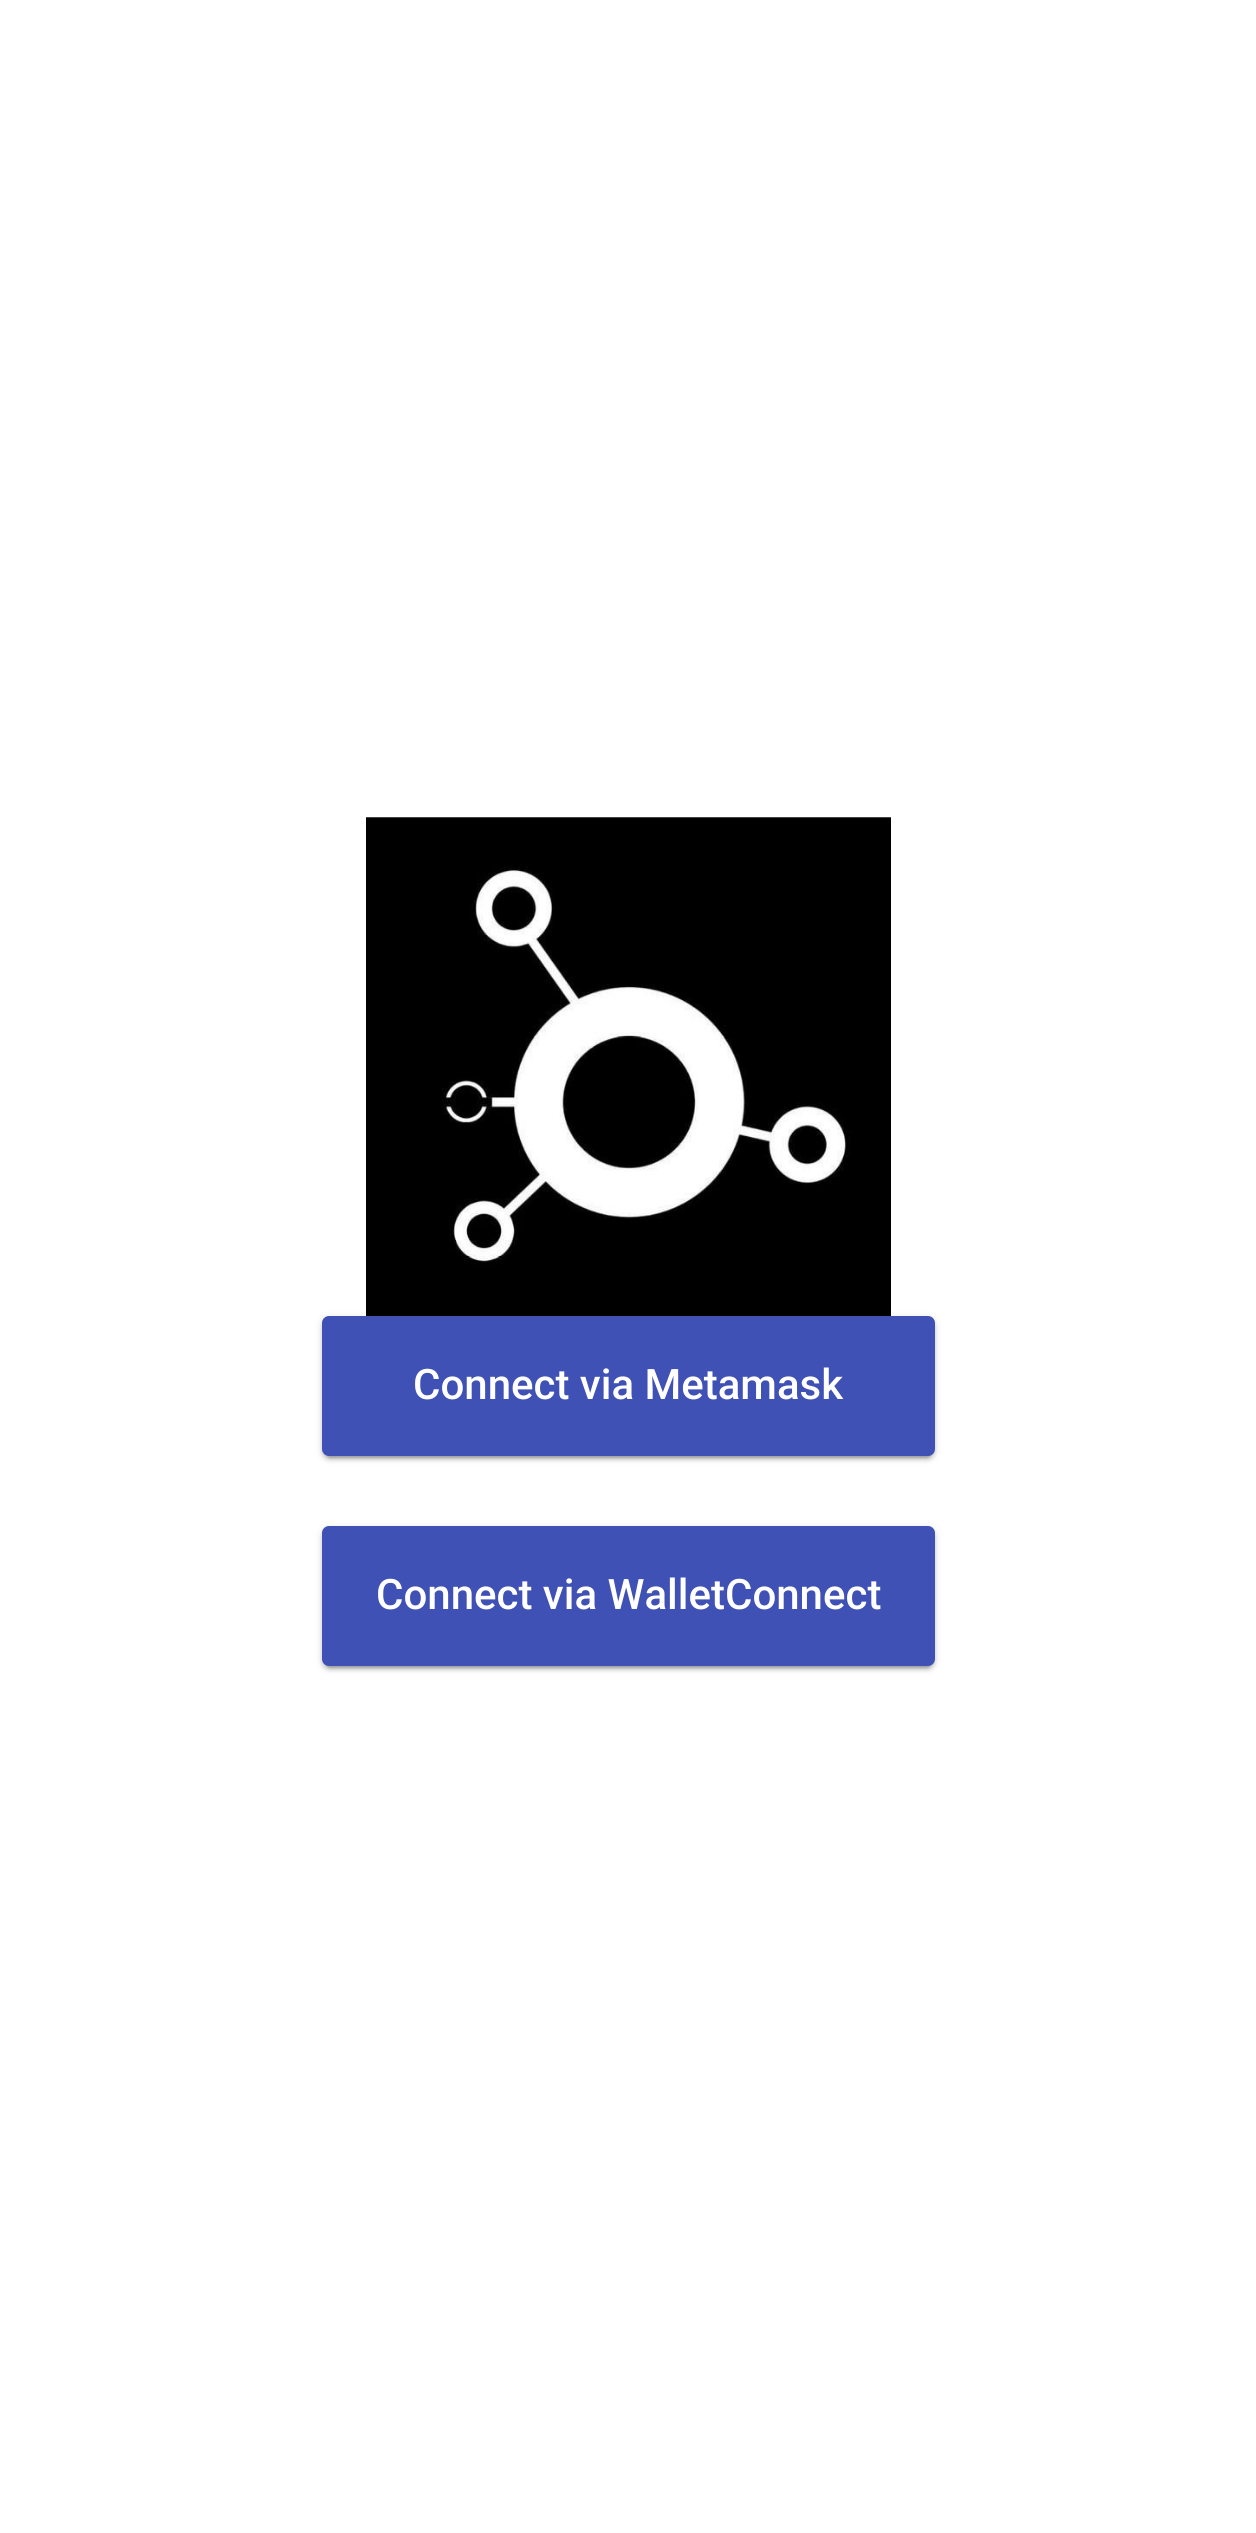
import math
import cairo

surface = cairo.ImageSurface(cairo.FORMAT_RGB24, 1256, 2533)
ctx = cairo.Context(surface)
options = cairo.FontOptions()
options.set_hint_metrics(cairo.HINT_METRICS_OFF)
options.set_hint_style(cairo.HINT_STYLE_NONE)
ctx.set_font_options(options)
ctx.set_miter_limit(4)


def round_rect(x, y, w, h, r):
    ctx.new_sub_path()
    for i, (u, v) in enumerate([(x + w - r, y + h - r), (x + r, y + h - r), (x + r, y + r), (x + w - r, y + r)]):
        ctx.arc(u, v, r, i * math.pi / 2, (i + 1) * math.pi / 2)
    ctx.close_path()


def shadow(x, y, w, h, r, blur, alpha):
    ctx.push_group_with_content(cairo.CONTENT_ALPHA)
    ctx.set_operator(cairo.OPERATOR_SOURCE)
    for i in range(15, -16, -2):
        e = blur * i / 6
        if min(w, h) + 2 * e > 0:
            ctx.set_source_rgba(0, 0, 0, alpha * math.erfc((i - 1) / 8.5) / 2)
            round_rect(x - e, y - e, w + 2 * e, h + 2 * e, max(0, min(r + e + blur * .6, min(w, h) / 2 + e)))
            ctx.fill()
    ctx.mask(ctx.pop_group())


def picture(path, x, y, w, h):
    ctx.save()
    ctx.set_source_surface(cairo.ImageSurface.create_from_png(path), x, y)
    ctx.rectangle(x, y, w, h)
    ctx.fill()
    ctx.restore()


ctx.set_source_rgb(1, 1, 1)
ctx.paint()
picture("img1.png", 366, 817, 525, 499)
ctx.set_source_rgb(0, 0, 0)
shadow(322, 1318, 613, 140, 7, 4.5, 0.12)
shadow(322, 1320, 613, 140, 7, 2, 0.14)
shadow(326, 1325, 605, 133, 4, 1, 0.2)
ctx.set_source_rgb(0.247, 0.318, 0.71)
round_rect(322, 1316, 613, 140, 7)
ctx.fill()
ctx.select_font_face("Roboto Medium")
ctx.set_font_size(42)
ctx.set_source_rgb(1, 1, 1)
ctx.move_to(413, 1399)
ctx.show_text("Connect via Metamask")
ctx.set_source_rgb(0, 0, 0)
shadow(322, 1528, 613, 140, 7, 4.5, 0.12)
shadow(322, 1530, 613, 140, 7, 2, 0.14)
shadow(326, 1535, 605, 133, 4, 1, 0.2)
ctx.set_source_rgb(0.247, 0.318, 0.71)
round_rect(322, 1526, 613, 140, 7)
ctx.fill()
ctx.set_source_rgb(1, 1, 1)
ctx.move_to(376, 1609)
ctx.show_text("Connect via WalletConnect")
surface.write_to_png("page.png")
